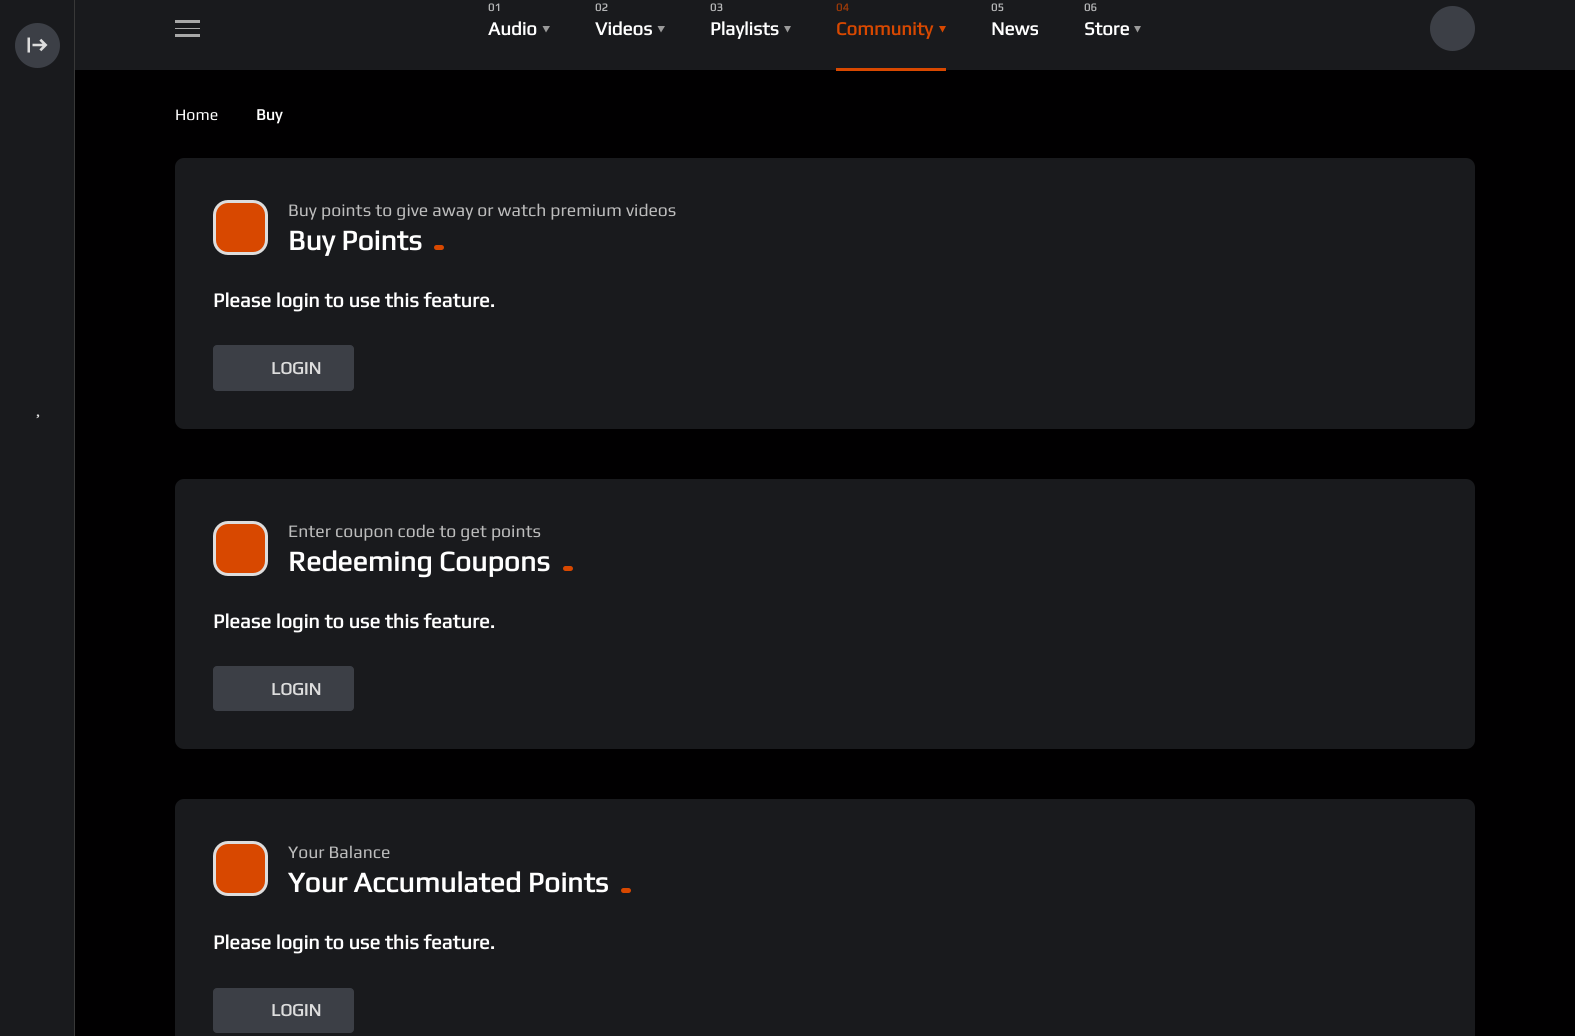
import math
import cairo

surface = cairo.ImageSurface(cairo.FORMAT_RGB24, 1575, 1036)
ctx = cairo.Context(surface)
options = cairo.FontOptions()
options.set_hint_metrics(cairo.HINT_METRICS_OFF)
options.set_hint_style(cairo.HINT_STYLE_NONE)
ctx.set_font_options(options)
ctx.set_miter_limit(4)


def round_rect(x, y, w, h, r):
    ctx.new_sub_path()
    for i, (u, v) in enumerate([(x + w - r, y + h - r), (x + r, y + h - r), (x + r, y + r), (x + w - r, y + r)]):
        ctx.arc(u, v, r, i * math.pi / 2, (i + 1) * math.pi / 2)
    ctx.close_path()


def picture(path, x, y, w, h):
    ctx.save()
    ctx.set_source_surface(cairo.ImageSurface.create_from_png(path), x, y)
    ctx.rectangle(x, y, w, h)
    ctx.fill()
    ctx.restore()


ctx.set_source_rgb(0.004, 0, 0.004)
ctx.paint()
ctx.set_source_rgb(0.098, 0.102, 0.114)
ctx.rectangle(0, 0, 74, 1036)
ctx.fill()
ctx.set_source_rgb(0.22, 0.22, 0.22)
ctx.rectangle(74, 0, 1, 1036)
ctx.fill()
ctx.set_source_rgb(0.235, 0.247, 0.275)
ctx.arc(37.5, 45.5, 22.5, 0, 2 * math.pi)
ctx.fill()
picture("img1.png", 27, 37, 21, 16)
picture("img2.png", 36, 414, 4, 5)
ctx.set_source_rgb(0.098, 0.102, 0.114)
ctx.rectangle(75, 0, 1500, 70)
ctx.fill()
ctx.set_source_rgb(0.659, 0.659, 0.659)
ctx.rectangle(175, 20, 25, 3)
ctx.fill()
ctx.rectangle(175, 28, 25, 1)
ctx.fill()
ctx.rectangle(175, 34, 25, 3)
ctx.fill()
ctx.select_font_face("Play", cairo.FONT_SLANT_NORMAL, cairo.FONT_WEIGHT_BOLD)
ctx.set_font_size(11)
ctx.set_source_rgb(0.71, 0.714, 0.718)
ctx.move_to(488, 11)
ctx.show_text("01")
ctx.set_font_size(18.75)
ctx.set_source_rgb(1, 1, 1)
ctx.move_to(488, 35)
ctx.show_text("Audio")
ctx.set_source_rgb(0.604, 0.604, 0.604)
ctx.new_path()
ctx.move_to(542.5, 26)
ctx.line_to(550, 26)
ctx.line_to(546, 32.5)
ctx.close_path()
ctx.fill()
ctx.set_font_size(11)
ctx.set_source_rgb(0.71, 0.714, 0.718)
ctx.move_to(595, 11)
ctx.show_text("02")
ctx.set_font_size(18.75)
ctx.set_source_rgb(1, 1, 1)
ctx.move_to(595, 35)
ctx.show_text("Videos")
ctx.set_source_rgb(0.604, 0.604, 0.604)
ctx.new_path()
ctx.move_to(657.5, 26)
ctx.line_to(665, 26)
ctx.line_to(661, 32.5)
ctx.close_path()
ctx.fill()
ctx.set_font_size(11)
ctx.set_source_rgb(0.71, 0.714, 0.718)
ctx.move_to(710, 11)
ctx.show_text("03")
ctx.set_font_size(18.75)
ctx.set_source_rgb(1, 1, 1)
ctx.move_to(710, 35)
ctx.show_text("Playlists")
ctx.set_source_rgb(0.604, 0.604, 0.604)
ctx.new_path()
ctx.move_to(784, 26)
ctx.line_to(791, 26)
ctx.line_to(787.5, 32.5)
ctx.close_path()
ctx.fill()
ctx.set_font_size(11)
ctx.set_source_rgb(0.608, 0.224, 0.035)
ctx.move_to(836, 11)
ctx.show_text("04")
ctx.set_font_size(18.75)
ctx.set_source_rgb(0.847, 0.282, 0)
ctx.move_to(836, 35)
ctx.show_text("Community")
ctx.new_path()
ctx.move_to(939, 26)
ctx.line_to(946, 26)
ctx.line_to(942.5, 32.5)
ctx.close_path()
ctx.fill()
ctx.rectangle(836, 68, 110, 3)
ctx.fill()
ctx.set_font_size(11)
ctx.set_source_rgb(0.71, 0.714, 0.718)
ctx.move_to(991, 11)
ctx.show_text("05")
ctx.set_font_size(18.75)
ctx.set_source_rgb(1, 1, 1)
ctx.move_to(991, 35)
ctx.show_text("News")
ctx.set_font_size(11)
ctx.set_source_rgb(0.71, 0.714, 0.718)
ctx.move_to(1084, 11)
ctx.show_text("06")
ctx.set_font_size(18.75)
ctx.set_source_rgb(1, 1, 1)
ctx.move_to(1084, 35)
ctx.show_text("Store")
ctx.set_source_rgb(0.604, 0.604, 0.604)
ctx.new_path()
ctx.move_to(1134, 26)
ctx.line_to(1141, 26)
ctx.line_to(1137.5, 32.5)
ctx.close_path()
ctx.fill()
ctx.set_source_rgb(0.235, 0.247, 0.275)
ctx.arc(1452.5, 28.5, 22.5, 0, 2 * math.pi)
ctx.fill()
ctx.select_font_face("Play")
ctx.set_font_size(16)
ctx.set_source_rgb(1, 1, 1)
ctx.move_to(175, 120)
ctx.show_text("Home")
ctx.select_font_face("Play", cairo.FONT_SLANT_NORMAL, cairo.FONT_WEIGHT_BOLD)
ctx.move_to(256, 120)
ctx.show_text("Buy")
ctx.set_source_rgb(0.098, 0.102, 0.114)
round_rect(175, 158, 1300, 271, 9)
ctx.fill()
ctx.set_source_rgb(0.847, 0.282, 0)
round_rect(214.5, 201.5, 52, 52, 13.5)
ctx.fill_preserve()
ctx.set_source_rgb(0.867, 0.867, 0.867)
ctx.set_line_width(3)
ctx.stroke()
ctx.select_font_face("Play")
ctx.set_font_size(17.6)
ctx.set_source_rgb(0.741, 0.741, 0.741)
ctx.move_to(288, 216)
ctx.show_text("Buy points to give away or watch premium videos")
ctx.select_font_face("Play", cairo.FONT_SLANT_NORMAL, cairo.FONT_WEIGHT_BOLD)
ctx.set_font_size(28.4)
ctx.set_source_rgb(1, 1, 1)
ctx.move_to(288, 250)
ctx.show_text("Buy Points")
ctx.set_source_rgb(0.847, 0.282, 0)
round_rect(434, 245, 10, 5, 2.5)
ctx.fill()
ctx.set_font_size(20)
ctx.set_source_rgb(1, 1, 1)
ctx.move_to(213, 307)
ctx.show_text("Please login to use this feature.")
ctx.set_source_rgb(0.235, 0.247, 0.275)
round_rect(213.5, 345.5, 140, 45, 3.5)
ctx.fill_preserve()
ctx.set_line_width(1)
ctx.stroke()
ctx.set_font_size(17.6)
ctx.set_source_rgb(0.867, 0.867, 0.867)
ctx.move_to(271, 374)
ctx.show_text("LOGIN")
ctx.set_source_rgb(0.098, 0.102, 0.114)
round_rect(175, 479, 1300, 270, 9)
ctx.fill()
ctx.set_source_rgb(0.847, 0.282, 0)
round_rect(214.5, 522.5, 52, 52, 13.5)
ctx.fill_preserve()
ctx.set_source_rgb(0.867, 0.867, 0.867)
ctx.set_line_width(3)
ctx.stroke()
ctx.select_font_face("Play")
ctx.set_source_rgb(0.741, 0.741, 0.741)
ctx.move_to(288, 537)
ctx.show_text("Enter coupon code to get points")
ctx.select_font_face("Play", cairo.FONT_SLANT_NORMAL, cairo.FONT_WEIGHT_BOLD)
ctx.set_font_size(28.4)
ctx.set_source_rgb(1, 1, 1)
ctx.move_to(288, 571)
ctx.show_text("Redeeming Coupons")
ctx.set_source_rgb(0.847, 0.282, 0)
round_rect(563, 566, 10, 5, 2.5)
ctx.fill()
ctx.set_font_size(20)
ctx.set_source_rgb(1, 1, 1)
ctx.move_to(213, 628)
ctx.show_text("Please login to use this feature.")
ctx.set_source_rgb(0.235, 0.247, 0.275)
round_rect(213.5, 666.5, 140, 44, 3.5)
ctx.fill_preserve()
ctx.set_line_width(1)
ctx.stroke()
ctx.set_font_size(17.6)
ctx.set_source_rgb(0.867, 0.867, 0.867)
ctx.move_to(271, 695)
ctx.show_text("LOGIN")
ctx.set_source_rgb(0.098, 0.102, 0.114)
round_rect(175, 799, 1300, 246, 9)
ctx.fill()
ctx.set_source_rgb(0.847, 0.282, 0)
round_rect(214.5, 842.5, 52, 52, 13.5)
ctx.fill_preserve()
ctx.set_source_rgb(0.867, 0.867, 0.867)
ctx.set_line_width(3)
ctx.stroke()
ctx.select_font_face("Play")
ctx.set_source_rgb(0.741, 0.741, 0.741)
ctx.move_to(288, 858)
ctx.show_text("Your Balance")
ctx.select_font_face("Play", cairo.FONT_SLANT_NORMAL, cairo.FONT_WEIGHT_BOLD)
ctx.set_font_size(28.4)
ctx.set_source_rgb(1, 1, 1)
ctx.move_to(288, 892)
ctx.show_text("Your Accumulated Points")
ctx.set_source_rgb(0.847, 0.282, 0)
round_rect(621, 888, 10, 5, 2.5)
ctx.fill()
ctx.set_font_size(20)
ctx.set_source_rgb(1, 1, 1)
ctx.move_to(213, 949)
ctx.show_text("Please login to use this feature.")
ctx.set_source_rgb(0.235, 0.247, 0.275)
round_rect(213.5, 988.5, 140, 44, 3.5)
ctx.fill_preserve()
ctx.set_line_width(1)
ctx.stroke()
ctx.set_font_size(17.6)
ctx.set_source_rgb(0.867, 0.867, 0.867)
ctx.move_to(271, 1016)
ctx.show_text("LOGIN")
surface.write_to_png("page.png")
